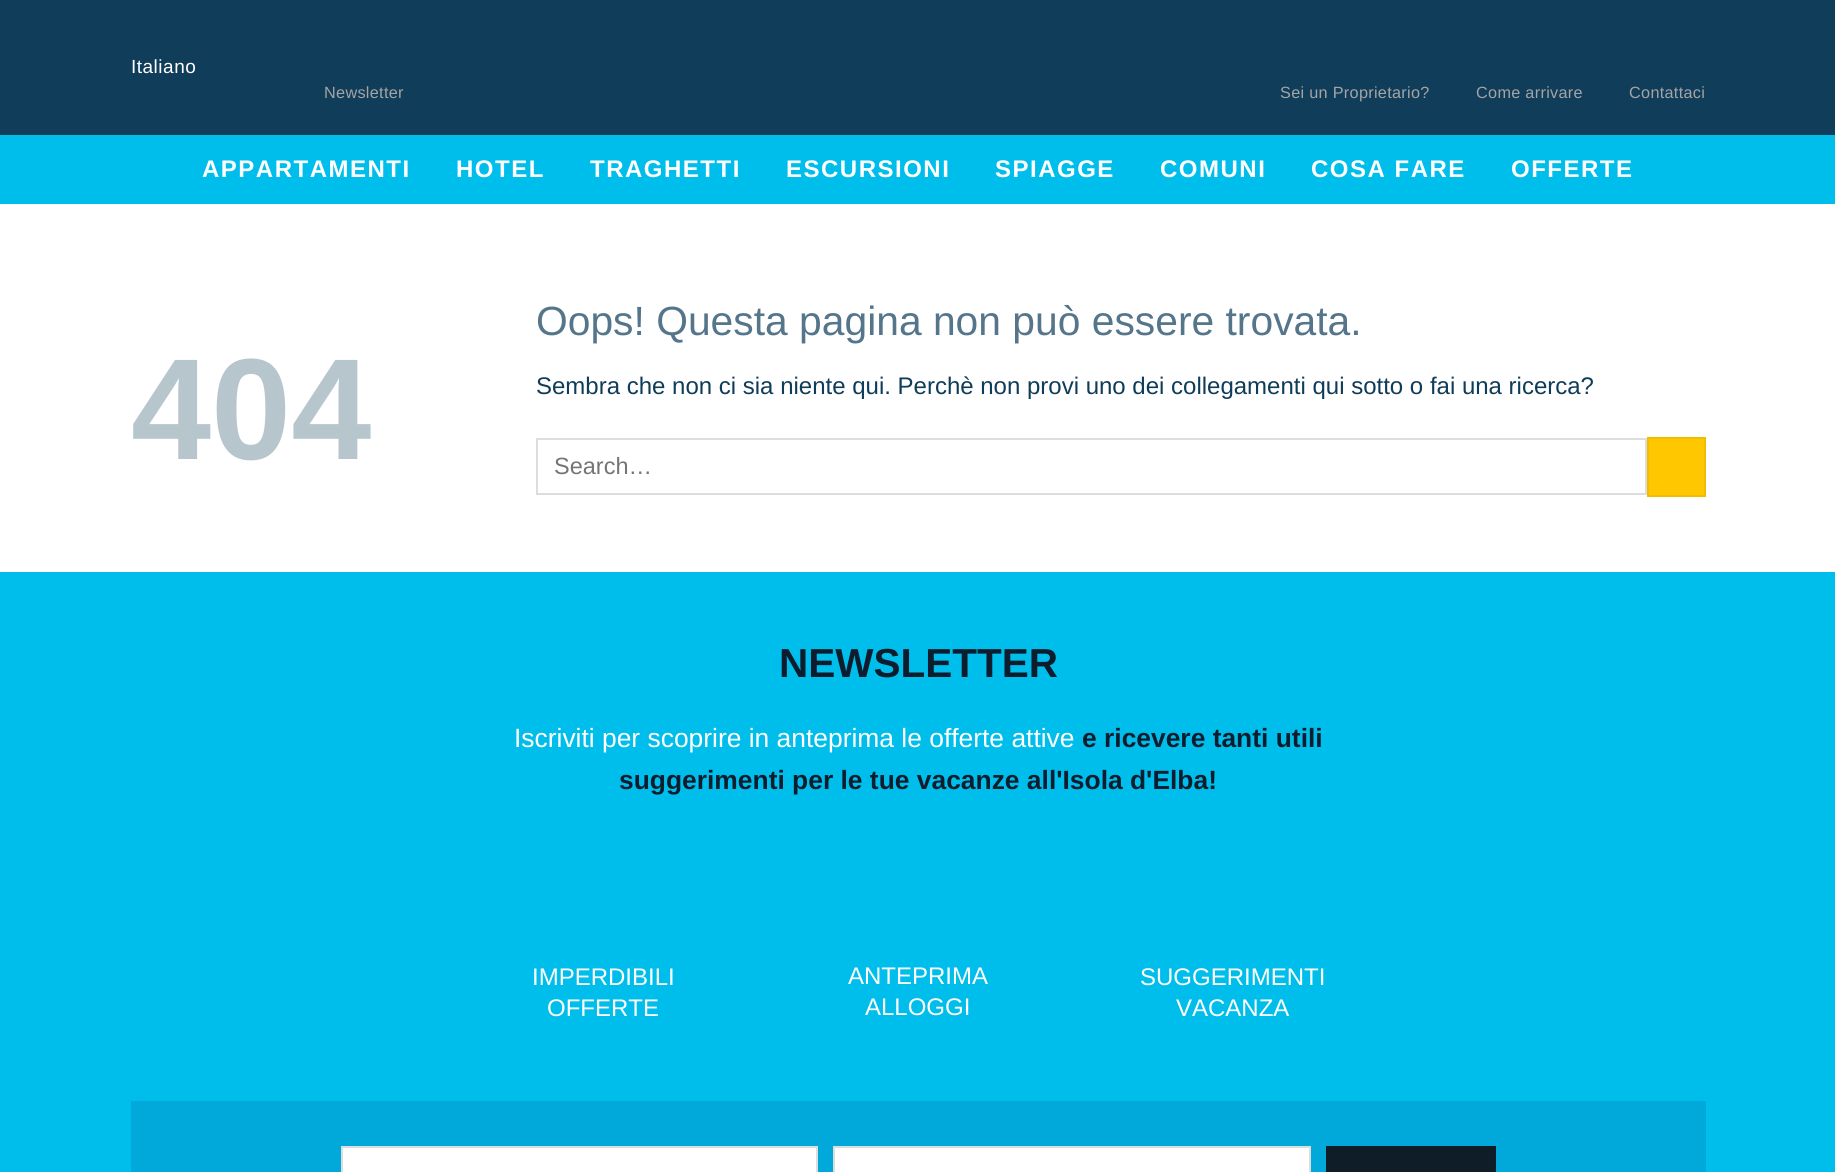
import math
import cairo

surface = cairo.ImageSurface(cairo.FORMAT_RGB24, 1835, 1172)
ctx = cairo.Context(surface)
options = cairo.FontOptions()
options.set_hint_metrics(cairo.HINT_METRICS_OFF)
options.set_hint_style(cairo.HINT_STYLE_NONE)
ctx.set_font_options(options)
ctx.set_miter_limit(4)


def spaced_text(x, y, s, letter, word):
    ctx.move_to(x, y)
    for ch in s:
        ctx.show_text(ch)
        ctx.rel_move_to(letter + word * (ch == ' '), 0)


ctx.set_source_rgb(1, 1, 1)
ctx.paint()
ctx.set_source_rgb(0.063, 0.239, 0.353)
ctx.rectangle(0, 0, 1835, 135)
ctx.fill()
ctx.select_font_face("Liberation Sans")
ctx.set_font_size(19)
ctx.set_source_rgb(1, 1, 1)
spaced_text(131, 73, "Italiano", 0.5, 0)
ctx.set_font_size(16.25)
ctx.set_source_rgb(0.643, 0.643, 0.643)
spaced_text(324, 98, "Newsletter", 0.3, 0)
spaced_text(1280, 98, "Sei un Proprietario?", 0.3, 0)
spaced_text(1476, 98, "Come arrivare", 0.3, 0)
spaced_text(1629, 98, "Contattaci", 0.3, 0)
ctx.set_source_rgb(0, 0.745, 0.918)
ctx.rectangle(0, 135, 1835, 69)
ctx.fill()
ctx.select_font_face("Liberation Sans", cairo.FONT_SLANT_NORMAL, cairo.FONT_WEIGHT_BOLD)
ctx.set_font_size(24)
ctx.set_source_rgb(1, 1, 1)
spaced_text(202, 177, "APPARTAMENTI", 1.5, 0)
spaced_text(456, 177, "HOTEL", 1.5, 0)
spaced_text(590, 177, "TRAGHETTI", 1.5, 0)
spaced_text(786, 177, "ESCURSIONI", 1.5, 0)
spaced_text(995, 177, "SPIAGGE", 1.5, 0)
spaced_text(1160, 177, "COMUNI", 1.5, 0)
spaced_text(1311, 177, "COSA FARE", 1.5, 0)
spaced_text(1511, 177, "OFFERTE", 1.5, 0)
ctx.set_font_size(144)
ctx.set_source_rgb(0.718, 0.773, 0.804)
ctx.move_to(131, 459)
ctx.show_text("404")
ctx.select_font_face("Liberation Sans")
ctx.set_font_size(40.8)
ctx.set_source_rgb(0.333, 0.459, 0.541)
ctx.move_to(536, 335)
ctx.show_text("Oops! Questa pagina non può essere trovata.")
ctx.set_font_size(24)
ctx.set_source_rgb(0.059, 0.235, 0.345)
ctx.move_to(536, 394)
ctx.show_text("Sembra che non ci sia niente qui. Perchè non provi uno dei collegamenti qui sotto o fai una ricerca?")
ctx.rectangle(537, 439, 1109, 55)
ctx.set_source_rgb(0.867, 0.867, 0.867)
ctx.stroke()
ctx.set_font_size(23.5)
ctx.set_source_rgb(0.459, 0.459, 0.459)
ctx.move_to(554, 474)
ctx.show_text("Search…")
ctx.set_source_rgb(1, 0.78, 0)
ctx.rectangle(1648, 438, 57, 58)
ctx.fill_preserve()
ctx.set_source_rgb(0.949, 0.741, 0)
ctx.stroke()
ctx.set_source_rgb(0, 0.745, 0.918)
ctx.rectangle(0, 572, 1835, 600)
ctx.fill()
ctx.select_font_face("Liberation Sans", cairo.FONT_SLANT_NORMAL, cairo.FONT_WEIGHT_BOLD)
ctx.set_font_size(40.5)
ctx.set_source_rgb(0.051, 0.114, 0.176)
ctx.move_to(779, 677)
ctx.show_text("NEWSLETTER")
ctx.select_font_face("Liberation Sans")
ctx.set_font_size(26.4)
ctx.set_source_rgb(1, 1, 1)
ctx.move_to(514, 747)
ctx.show_text("Iscriviti per scoprire in anteprima le offerte attive")
ctx.select_font_face("Liberation Sans", cairo.FONT_SLANT_NORMAL, cairo.FONT_WEIGHT_BOLD)
ctx.set_source_rgb(0.051, 0.114, 0.176)
ctx.move_to(1082, 747)
ctx.show_text("e ricevere tanti utili")
ctx.move_to(619, 789)
ctx.show_text("suggerimenti per le tue vacanze all'Isola d'Elba!")
ctx.select_font_face("Liberation Sans")
ctx.set_font_size(24)
ctx.set_source_rgb(1, 1, 1)
ctx.move_to(532, 985)
ctx.show_text("IMPERDIBILI")
ctx.move_to(547, 1016)
ctx.show_text("OFFERTE")
ctx.move_to(848, 984)
ctx.show_text("ANTEPRIMA")
ctx.move_to(865, 1015)
ctx.show_text("ALLOGGI")
ctx.move_to(1140, 985)
ctx.show_text("SUGGERIMENTI")
ctx.move_to(1176, 1016)
ctx.show_text("VACANZA")
ctx.set_source_rgb(0.004, 0.663, 0.855)
ctx.rectangle(131, 1101, 1575, 71)
ctx.fill()
ctx.set_source_rgb(1, 1, 1)
ctx.rectangle(342, 1147, 475, 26)
ctx.fill_preserve()
ctx.set_source_rgb(0.867, 0.867, 0.867)
ctx.stroke()
ctx.set_source_rgb(1, 1, 1)
ctx.rectangle(834, 1147, 476, 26)
ctx.fill_preserve()
ctx.set_source_rgb(0.867, 0.867, 0.867)
ctx.stroke()
ctx.set_source_rgb(0.059, 0.114, 0.157)
ctx.rectangle(1327, 1147, 168, 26)
ctx.fill_preserve()
ctx.set_source_rgb(0.055, 0.11, 0.149)
ctx.stroke()
surface.write_to_png("page.png")
